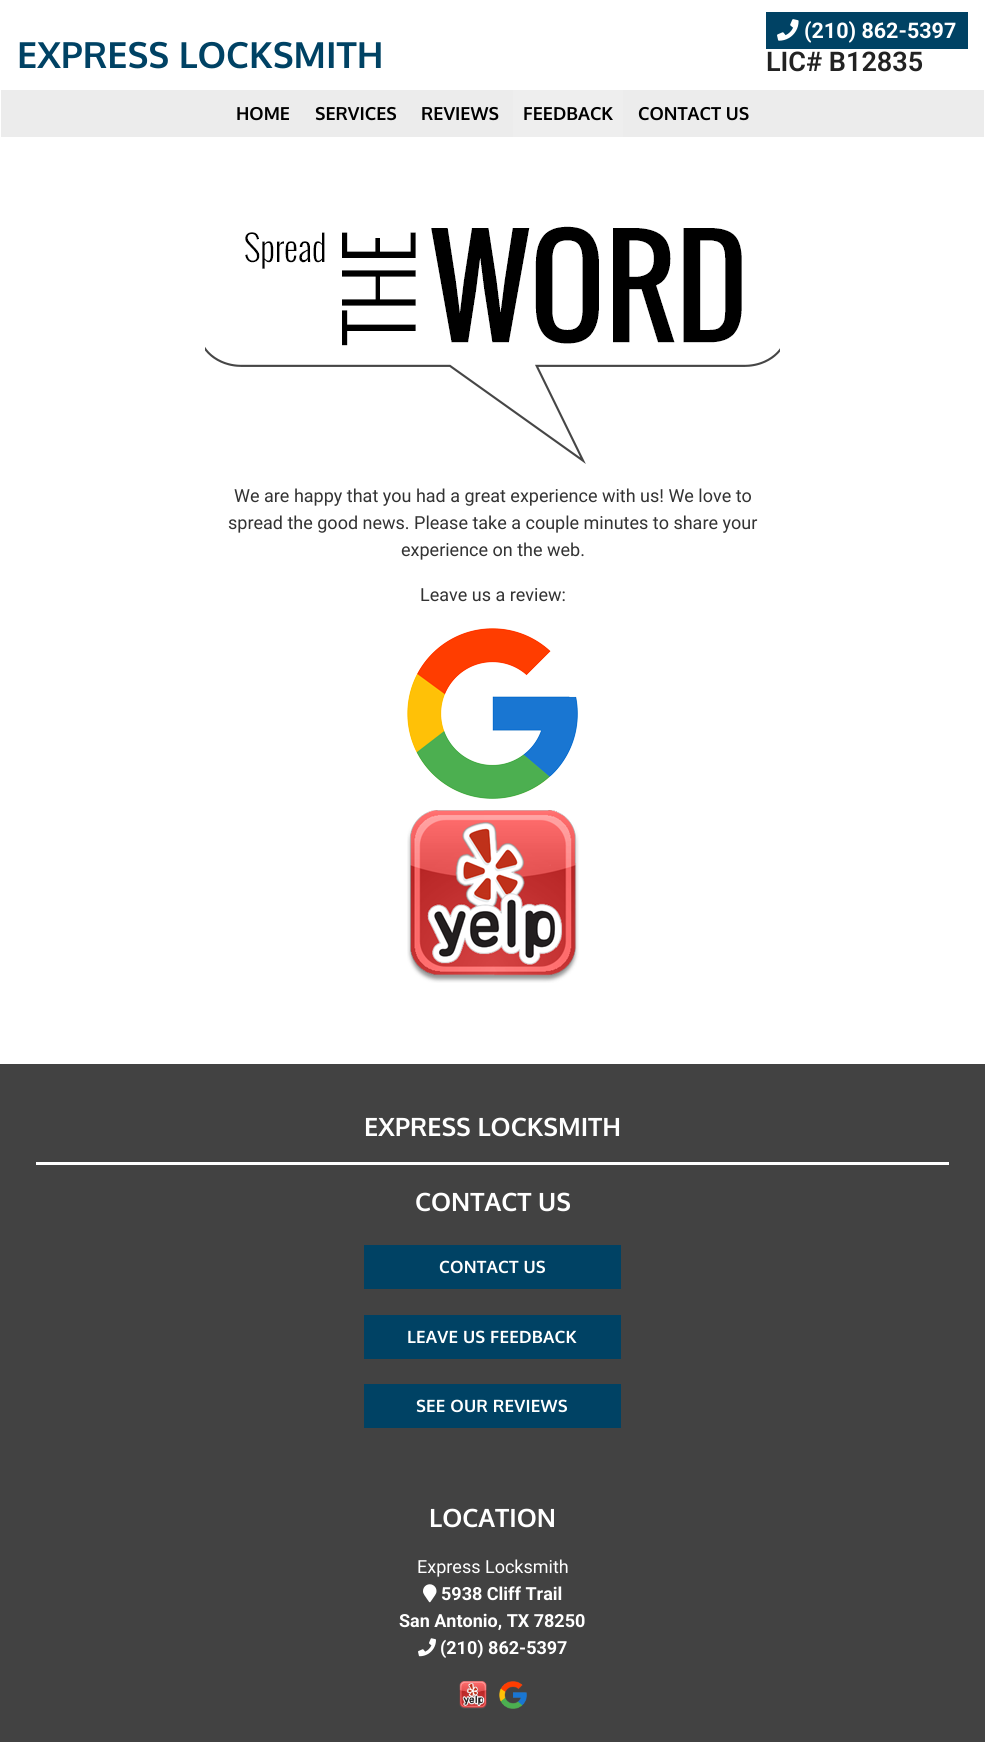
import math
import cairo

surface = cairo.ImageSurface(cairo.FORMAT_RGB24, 985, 1742)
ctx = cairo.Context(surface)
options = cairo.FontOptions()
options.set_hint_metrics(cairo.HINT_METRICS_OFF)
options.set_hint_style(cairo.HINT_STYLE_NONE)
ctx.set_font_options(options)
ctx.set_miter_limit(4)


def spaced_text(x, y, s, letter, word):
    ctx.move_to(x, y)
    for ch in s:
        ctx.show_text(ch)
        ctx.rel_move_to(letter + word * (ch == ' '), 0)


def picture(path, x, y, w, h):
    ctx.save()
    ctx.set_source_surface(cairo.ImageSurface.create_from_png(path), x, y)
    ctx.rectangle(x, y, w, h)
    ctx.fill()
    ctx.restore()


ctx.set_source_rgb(1, 1, 1)
ctx.paint()
ctx.select_font_face("Oxygen", cairo.FONT_SLANT_NORMAL, cairo.FONT_WEIGHT_BOLD)
ctx.set_font_size(36)
ctx.set_source_rgb(0, 0.259, 0.392)
ctx.move_to(17, 68)
ctx.show_text("EXPRESS LOCKSMITH")
ctx.rectangle(766, 12, 202, 37)
ctx.fill()
picture("img1.png", 777, 19, 22, 22)
ctx.select_font_face("Roboto", cairo.FONT_SLANT_NORMAL, cairo.FONT_WEIGHT_BOLD)
ctx.set_font_size(21.5)
ctx.set_source_rgb(1, 1, 1)
ctx.move_to(804, 38)
ctx.show_text("(210) 862-5397")
ctx.select_font_face("Roboto SemiBold")
ctx.set_font_size(27)
ctx.set_source_rgb(0.133, 0.133, 0.133)
ctx.move_to(766, 71)
ctx.show_text("LIC# B12835")
ctx.set_source_rgb(0.922, 0.922, 0.922)
ctx.rectangle(1, 90, 983, 47)
ctx.fill()
ctx.select_font_face("Oxygen", cairo.FONT_SLANT_NORMAL, cairo.FONT_WEIGHT_BOLD)
ctx.set_font_size(18)
ctx.set_source_rgb(0, 0, 0)
ctx.move_to(236, 120)
ctx.show_text("HOME")
ctx.move_to(315, 120)
ctx.show_text("SERVICES")
ctx.move_to(421, 120)
ctx.show_text("REVIEWS")
ctx.set_source_rgb(0.933, 0.933, 0.933)
ctx.rectangle(513, 90, 110, 47)
ctx.fill()
ctx.set_source_rgb(0, 0, 0)
ctx.move_to(523, 120)
ctx.show_text("FEEDBACK")
ctx.move_to(638, 120)
ctx.show_text("CONTACT US")
picture("img2.png", 205, 226, 575, 238)
ctx.select_font_face("Roboto")
ctx.set_source_rgb(0.2, 0.2, 0.2)
ctx.move_to(234, 502)
ctx.show_text("We are happy that you had a great experience with us! We love to")
ctx.move_to(228, 529)
ctx.show_text("spread the good news. Please take a couple minutes to share your")
ctx.move_to(401, 556)
ctx.show_text("experience on the web.")
ctx.move_to(420, 601)
ctx.show_text("Leave us a review:")
picture("img3.png", 407, 628, 171, 171)
picture("img4.png", 407, 810, 172, 173)
ctx.set_source_rgb(0.259, 0.259, 0.259)
ctx.rectangle(0, 1064, 985, 678)
ctx.fill()
ctx.set_source_rgb(1, 1, 1)
ctx.rectangle(36, 1162, 913, 3)
ctx.fill()
ctx.select_font_face("Oxygen", cairo.FONT_SLANT_NORMAL, cairo.FONT_WEIGHT_BOLD)
ctx.set_font_size(25.25)
ctx.move_to(364, 1136)
ctx.show_text("EXPRESS LOCKSMITH")
ctx.move_to(415, 1211)
ctx.show_text("CONTACT US")
ctx.set_source_rgb(0, 0.259, 0.392)
ctx.rectangle(364, 1245, 257, 44)
ctx.fill()
ctx.set_font_size(17)
ctx.set_source_rgb(1, 1, 1)
spaced_text(439, 1273, "CONTACT US", 0.2, 0)
ctx.set_source_rgb(0, 0.259, 0.392)
ctx.rectangle(364, 1315, 257, 44)
ctx.fill()
ctx.set_source_rgb(1, 1, 1)
spaced_text(407, 1343, "LEAVE US FEEDBACK", 0.2, 0)
ctx.set_source_rgb(0, 0.259, 0.392)
ctx.rectangle(364, 1384, 257, 44)
ctx.fill()
ctx.set_source_rgb(1, 1, 1)
spaced_text(416, 1412, "SEE OUR REVIEWS", 0.2, 0)
ctx.set_font_size(25.25)
ctx.move_to(429, 1527)
ctx.show_text("LOCATION")
ctx.select_font_face("Roboto")
ctx.set_font_size(18)
ctx.move_to(417, 1573)
ctx.show_text("Express Locksmith")
picture("img5.png", 423, 1584, 14, 19)
ctx.select_font_face("Roboto", cairo.FONT_SLANT_NORMAL, cairo.FONT_WEIGHT_BOLD)
ctx.move_to(441, 1600)
ctx.show_text("5938 Cliff Trail")
ctx.move_to(399, 1627)
ctx.show_text("San Antonio, TX 78250")
picture("img6.png", 418, 1638, 18, 19)
ctx.move_to(440, 1654)
ctx.show_text("(210) 862-5397")
picture("img7.png", 459, 1681, 28, 28)
picture("img8.png", 499, 1681, 28, 28)
surface.write_to_png("page.png")
